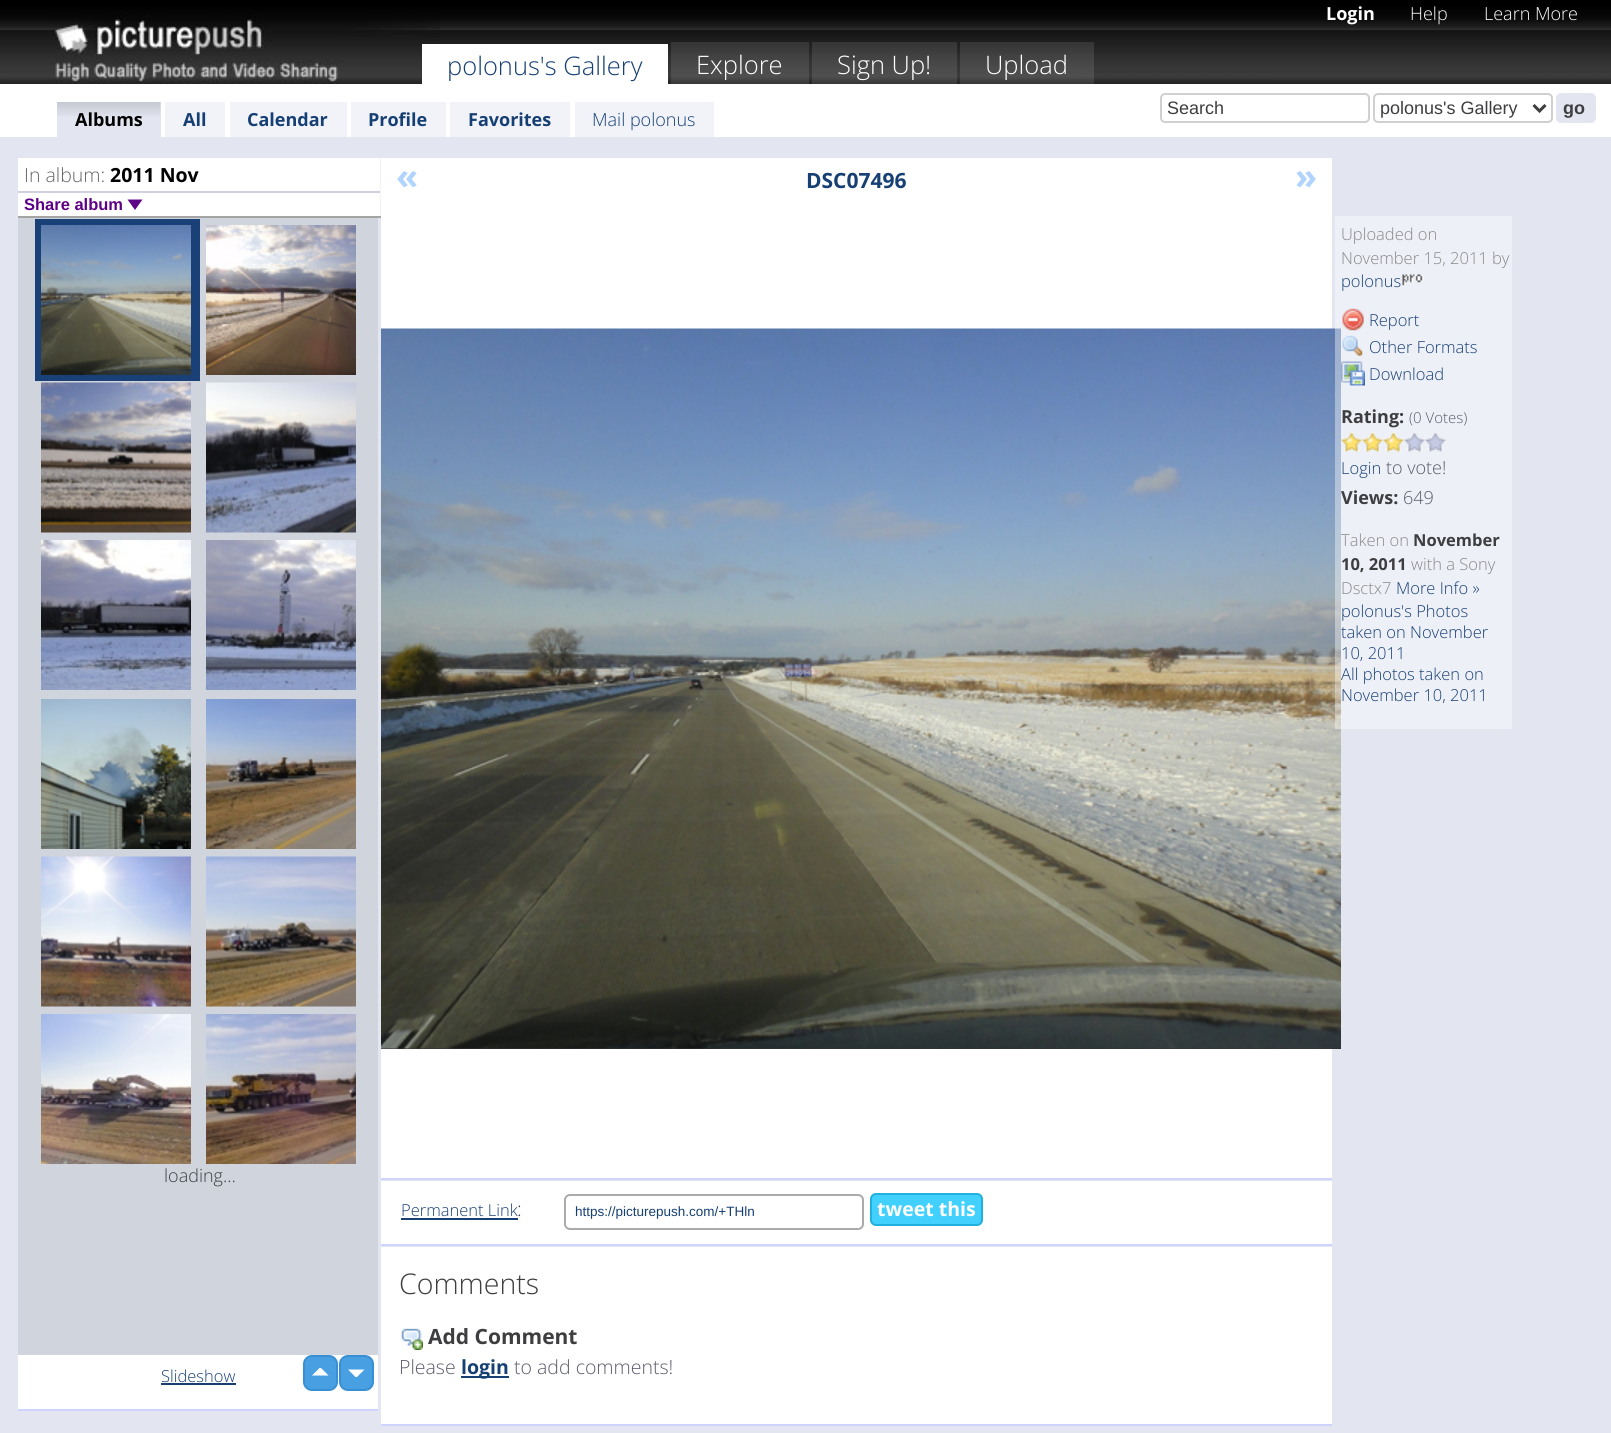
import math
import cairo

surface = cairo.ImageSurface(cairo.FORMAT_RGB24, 1611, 1433)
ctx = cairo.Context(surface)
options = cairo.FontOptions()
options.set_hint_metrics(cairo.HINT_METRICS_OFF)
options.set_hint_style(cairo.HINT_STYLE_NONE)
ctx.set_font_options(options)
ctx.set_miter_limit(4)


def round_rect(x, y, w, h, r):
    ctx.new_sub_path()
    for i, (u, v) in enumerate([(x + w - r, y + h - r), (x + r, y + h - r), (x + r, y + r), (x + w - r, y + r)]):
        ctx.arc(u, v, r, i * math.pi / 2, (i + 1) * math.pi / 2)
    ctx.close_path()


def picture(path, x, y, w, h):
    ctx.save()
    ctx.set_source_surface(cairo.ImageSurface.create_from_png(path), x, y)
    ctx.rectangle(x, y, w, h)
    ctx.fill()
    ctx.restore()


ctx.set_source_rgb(0.89, 0.902, 0.945)
ctx.paint()
ctx.set_source_rgb(0.176, 0.18, 0.188)
ctx.rectangle(1332, 1048, 9, 1)
ctx.fill()
picture("img1.png", 0, 0, 1611, 84)
picture("img2.png", 55, 14, 385, 70)
ctx.set_source_rgb(1, 1, 1)
ctx.rectangle(422, 44, 246, 40)
ctx.fill()
ctx.select_font_face("Open Sans Light")
ctx.set_font_size(25.5)
ctx.set_source_rgb(0.086, 0.247, 0.451)
ctx.move_to(447, 75)
ctx.show_text("polonus's Gallery")
ctx.set_source_rgba(1, 1, 1, 0.1)
ctx.rectangle(671, 42, 138, 42)
ctx.fill()
ctx.set_source_rgb(1, 1, 1)
ctx.move_to(696, 74)
ctx.show_text("Explore")
ctx.set_source_rgba(1, 1, 1, 0.1)
ctx.rectangle(812, 42, 145, 42)
ctx.fill()
ctx.set_source_rgb(1, 1, 1)
ctx.move_to(837, 74)
ctx.show_text("Sign Up!")
ctx.set_source_rgba(1, 1, 1, 0.1)
ctx.rectangle(960, 42, 134, 42)
ctx.fill()
ctx.set_source_rgb(1, 1, 1)
ctx.move_to(985, 74)
ctx.show_text("Upload")
ctx.select_font_face("Open Sans", cairo.FONT_SLANT_NORMAL, cairo.FONT_WEIGHT_BOLD)
ctx.set_font_size(18)
ctx.move_to(1326, 20)
ctx.show_text("Login")
ctx.select_font_face("Open Sans Light")
ctx.move_to(1410, 20)
ctx.show_text("Help")
ctx.move_to(1484, 20)
ctx.show_text("Learn More")
ctx.rectangle(0, 84, 1611, 53)
ctx.fill()
round_rect(1161, 94, 208, 28, 4)
ctx.set_source_rgb(0.816, 0.816, 0.816)
ctx.stroke()
ctx.select_font_face("Liberation Sans")
ctx.set_source_rgb(0.243, 0.243, 0.255)
ctx.move_to(1167, 114)
ctx.show_text("Search")
round_rect(1374, 94, 178, 28, 4)
ctx.set_source_rgb(0.816, 0.816, 0.816)
ctx.stroke()
ctx.new_path()
ctx.move_to(1533.5, 105)
ctx.line_to(1539.5, 111)
ctx.line_to(1545.5, 105)
ctx.set_source_rgb(0.243, 0.243, 0.243)
ctx.set_line_width(3)
ctx.stroke()
ctx.set_source_rgb(0.243, 0.243, 0.255)
ctx.move_to(1380, 114)
ctx.show_text("polonus's Gallery")
ctx.set_source_rgb(0.89, 0.902, 0.945)
round_rect(1557, 94, 38, 28, 4)
ctx.fill_preserve()
ctx.set_line_width(2)
ctx.stroke()
ctx.select_font_face("Liberation Sans", cairo.FONT_SLANT_NORMAL, cairo.FONT_WEIGHT_BOLD)
ctx.set_source_rgb(0.243, 0.243, 0.255)
ctx.move_to(1563, 114)
ctx.show_text("go")
ctx.set_source_rgb(0.89, 0.902, 0.945)
ctx.rectangle(57, 102, 104, 35)
ctx.fill()
picture("img3.png", 57, 102, 104, 14)
ctx.select_font_face("Open Sans", cairo.FONT_SLANT_NORMAL, cairo.FONT_WEIGHT_BOLD)
ctx.set_source_rgb(0, 0, 0)
ctx.move_to(75, 126)
ctx.show_text("Albums")
ctx.set_source_rgb(0.945, 0.953, 0.976)
ctx.rectangle(165, 102, 60, 35)
ctx.fill()
ctx.set_source_rgb(0.086, 0.247, 0.451)
ctx.move_to(183, 126)
ctx.show_text("All")
ctx.set_source_rgb(0.945, 0.953, 0.976)
ctx.rectangle(230, 102, 117, 35)
ctx.fill()
ctx.set_source_rgb(0.086, 0.247, 0.451)
ctx.move_to(247, 126)
ctx.show_text("Calendar")
ctx.set_source_rgb(0.945, 0.953, 0.976)
ctx.rectangle(351, 102, 95, 35)
ctx.fill()
ctx.set_source_rgb(0.086, 0.247, 0.451)
ctx.move_to(368, 126)
ctx.show_text("Profile")
ctx.set_source_rgb(0.945, 0.953, 0.976)
ctx.rectangle(450, 102, 120, 35)
ctx.fill()
ctx.set_source_rgb(0.086, 0.247, 0.451)
ctx.move_to(468, 126)
ctx.show_text("Favorites")
ctx.set_source_rgb(0.945, 0.953, 0.976)
ctx.rectangle(575, 102, 139, 35)
ctx.fill()
ctx.select_font_face("Open Sans Light")
ctx.set_source_rgb(0.086, 0.247, 0.451)
ctx.move_to(592, 126)
ctx.show_text("Mail polonus")
ctx.set_source_rgb(1, 1, 1)
ctx.rectangle(18, 158, 362, 58)
ctx.fill()
ctx.set_source_rgb(0.953, 0.953, 0.953)
ctx.rectangle(380, 158, 1, 60)
ctx.fill()
ctx.set_source_rgb(0.643, 0.643, 0.643)
ctx.rectangle(18, 216, 363, 2)
ctx.fill()
ctx.set_font_size(19.5)
ctx.set_source_rgb(0.4, 0.4, 0.4)
ctx.move_to(24, 182)
ctx.show_text("In album:")
ctx.select_font_face("Open Sans", cairo.FONT_SLANT_NORMAL, cairo.FONT_WEIGHT_BOLD)
ctx.set_source_rgb(0, 0, 0)
ctx.move_to(110, 182)
ctx.show_text("2011 Nov")
ctx.set_source_rgb(0.816, 0.816, 0.878)
ctx.rectangle(18, 191, 362, 2)
ctx.fill()
ctx.select_font_face("Liberation Sans", cairo.FONT_SLANT_NORMAL, cairo.FONT_WEIGHT_BOLD)
ctx.set_font_size(16.5)
ctx.set_source_rgb(0.369, 0, 0.522)
ctx.move_to(24, 210)
ctx.show_text("Share album")
ctx.new_path()
ctx.move_to(127.5, 199.5)
ctx.line_to(142.5, 199.5)
ctx.line_to(135, 210)
ctx.close_path()
ctx.fill()
ctx.set_source_rgb(0.816, 0.835, 0.867)
ctx.rectangle(18, 218, 360, 1137)
ctx.fill()
ctx.set_source_rgb(0.812, 0.831, 1)
ctx.rectangle(18, 1409, 360, 2)
ctx.fill()
ctx.set_source_rgb(0.098, 0.251, 0.467)
ctx.rectangle(35, 219, 165, 162)
ctx.fill()
picture("img4.png", 41, 225, 150, 150)
picture("img5.png", 206, 225, 150, 150)
picture("img6.png", 41, 382, 150, 151)
picture("img7.png", 206, 382, 150, 151)
picture("img8.png", 41, 540, 150, 150)
picture("img9.png", 206, 540, 150, 150)
picture("img10.png", 41, 699, 150, 150)
picture("img11.png", 206, 699, 150, 150)
picture("img12.png", 41, 856, 150, 151)
picture("img13.png", 206, 856, 150, 151)
picture("img14.png", 41, 1014, 150, 150)
picture("img15.png", 206, 1014, 150, 150)
ctx.select_font_face("Open Sans Light")
ctx.set_font_size(18)
ctx.set_source_rgb(0.243, 0.243, 0.255)
ctx.move_to(164, 1182)
ctx.show_text("loading...")
ctx.set_source_rgb(1, 1, 1)
ctx.rectangle(18, 1355, 360, 54)
ctx.fill()
ctx.set_source_rgb(0.282, 0.627, 0.89)
round_rect(304, 1356, 33, 34, 8)
ctx.fill_preserve()
ctx.set_source_rgb(0.22, 0.565, 0.827)
ctx.stroke()
ctx.set_source_rgb(0.282, 0.627, 0.89)
round_rect(340, 1356, 33, 34, 8)
ctx.fill_preserve()
ctx.set_source_rgb(0.22, 0.565, 0.827)
ctx.stroke()
ctx.set_source_rgb(1, 1, 1)
ctx.new_path()
ctx.move_to(328.5, 1375.5)
ctx.line_to(312, 1375.5)
ctx.line_to(319.5, 1368)
ctx.line_to(321, 1368)
ctx.close_path()
ctx.move_to(348, 1369.5)
ctx.line_to(364.5, 1369.5)
ctx.line_to(357, 1377)
ctx.line_to(355.5, 1377)
ctx.close_path()
ctx.fill()
ctx.set_font_size(16.5)
ctx.set_source_rgb(0.086, 0.247, 0.451)
ctx.move_to(161, 1382)
ctx.show_text("Slideshow")
ctx.rectangle(161, 1383, 75, 2)
ctx.fill()
ctx.set_source_rgb(1, 1, 1)
ctx.rectangle(381, 158, 951, 1020)
ctx.fill()
ctx.set_source_rgb(0.2, 0.2, 0.2)
ctx.rectangle(381, 1048, 951, 1)
ctx.fill()
ctx.set_source_rgb(0.812, 0.831, 1)
ctx.rectangle(381, 1178, 951, 2)
ctx.fill()
ctx.select_font_face("Open Sans", cairo.FONT_SLANT_NORMAL, cairo.FONT_WEIGHT_BOLD)
ctx.set_font_size(36)
ctx.set_source_rgb(0.69, 0.831, 0.996)
ctx.move_to(396, 189)
ctx.show_text("«")
ctx.set_font_size(21)
ctx.set_source_rgb(0.086, 0.247, 0.451)
ctx.move_to(806, 188)
ctx.show_text("DSC07496")
ctx.set_font_size(36)
ctx.set_source_rgb(0.69, 0.831, 0.996)
ctx.move_to(1295, 189)
ctx.show_text("»")
picture("img16.png", 381, 328, 960, 721)
ctx.set_source_rgba(1, 1, 1, 0.4)
ctx.rectangle(1335, 216, 177, 513)
ctx.fill()
ctx.select_font_face("Open Sans Light")
ctx.set_font_size(16.5)
ctx.set_source_rgb(0.533, 0.533, 0.533)
ctx.move_to(1341, 240)
ctx.show_text("Uploaded on")
ctx.move_to(1341, 264)
ctx.show_text("November 15, 2011 by")
ctx.set_source_rgb(0.086, 0.247, 0.451)
ctx.move_to(1341, 287)
ctx.show_text("polonus")
picture("img17.png", 1402, 274, 22, 12)
picture("img18.png", 1342, 308, 22, 23)
ctx.move_to(1369, 326)
ctx.show_text("Report")
picture("img19.png", 1342, 335, 21, 22)
ctx.move_to(1369, 353)
ctx.show_text("Other Formats")
picture("img20.png", 1341, 361, 24, 25)
ctx.move_to(1369, 380)
ctx.show_text("Download")
ctx.select_font_face("Open Sans", cairo.FONT_SLANT_NORMAL, cairo.FONT_WEIGHT_BOLD)
ctx.set_font_size(18)
ctx.set_source_rgb(0.243, 0.243, 0.255)
ctx.move_to(1341, 423)
ctx.show_text("Rating:")
ctx.select_font_face("Open Sans Light")
ctx.set_font_size(15)
ctx.set_source_rgb(0.353, 0.361, 0.424)
ctx.move_to(1409, 423)
ctx.show_text("(0 Votes)")
picture("img21.png", 1341, 432, 21, 20)
picture("img21.png", 1362, 432, 21, 20)
picture("img22.png", 1383, 432, 21, 20)
picture("img23.png", 1404, 432, 21, 20)
picture("img23.png", 1425, 432, 21, 20)
ctx.set_font_size(16.5)
ctx.set_source_rgb(0.086, 0.247, 0.451)
ctx.move_to(1341, 474)
ctx.show_text("Login")
ctx.set_font_size(18)
ctx.set_source_rgb(0.353, 0.361, 0.424)
ctx.move_to(1386, 474)
ctx.show_text("to vote!")
ctx.select_font_face("Open Sans", cairo.FONT_SLANT_NORMAL, cairo.FONT_WEIGHT_BOLD)
ctx.set_source_rgb(0.243, 0.243, 0.255)
ctx.move_to(1341, 504)
ctx.show_text("Views:")
ctx.select_font_face("Open Sans Light")
ctx.set_source_rgb(0.353, 0.361, 0.424)
ctx.move_to(1403, 504)
ctx.show_text("649")
ctx.set_font_size(16.5)
ctx.set_source_rgb(0.533, 0.533, 0.533)
ctx.move_to(1341, 546)
ctx.show_text("Taken on")
ctx.select_font_face("Open Sans", cairo.FONT_SLANT_NORMAL, cairo.FONT_WEIGHT_BOLD)
ctx.set_source_rgb(0.243, 0.243, 0.255)
ctx.move_to(1413, 546)
ctx.show_text("November")
ctx.move_to(1341, 570)
ctx.show_text("10, 2011")
ctx.select_font_face("Open Sans Light")
ctx.set_source_rgb(0.533, 0.533, 0.533)
ctx.move_to(1411, 570)
ctx.show_text("with a Sony")
ctx.move_to(1341, 594)
ctx.show_text("Dsctx7")
ctx.set_source_rgb(0.086, 0.247, 0.451)
ctx.move_to(1396, 594)
ctx.show_text("More Info »")
ctx.move_to(1341, 617)
ctx.show_text("polonus's Photos")
ctx.move_to(1341, 638)
ctx.show_text("taken on November")
ctx.move_to(1341, 659)
ctx.show_text("10, 2011")
ctx.move_to(1341, 680)
ctx.show_text("All photos taken on")
ctx.move_to(1341, 701)
ctx.show_text("November 10, 2011")
ctx.set_source_rgb(1, 1, 1)
ctx.rectangle(381, 1181, 951, 63)
ctx.fill()
ctx.set_source_rgb(0.812, 0.831, 1)
ctx.rectangle(381, 1244, 951, 2)
ctx.fill()
ctx.set_source_rgb(0.086, 0.247, 0.451)
ctx.move_to(401, 1216)
ctx.show_text("Permanent Link")
ctx.rectangle(401, 1218, 117, 2)
ctx.fill()
ctx.set_font_size(19.5)
ctx.set_source_rgb(0.243, 0.243, 0.255)
ctx.move_to(517, 1216)
ctx.show_text(":")
round_rect(565, 1195, 298, 34, 5)
ctx.set_source_rgb(0.667, 0.667, 0.667)
ctx.stroke()
ctx.select_font_face("Liberation Sans")
ctx.set_font_size(13.5)
ctx.set_source_rgb(0.086, 0.247, 0.451)
ctx.move_to(575, 1216)
ctx.show_text("https://picturepush.com/+THln")
ctx.set_source_rgb(0.259, 0.816, 1)
round_rect(871, 1194, 111, 31, 5)
ctx.fill_preserve()
ctx.set_source_rgb(0.133, 0.69, 0.875)
ctx.stroke()
ctx.select_font_face("Open Sans", cairo.FONT_SLANT_NORMAL, cairo.FONT_WEIGHT_BOLD)
ctx.set_font_size(19.5)
ctx.set_source_rgb(1, 1, 1)
ctx.move_to(877, 1216)
ctx.show_text("tweet this")
ctx.rectangle(381, 1247, 951, 177)
ctx.fill()
ctx.set_source_rgb(0.812, 0.831, 1)
ctx.rectangle(381, 1424, 951, 2)
ctx.fill()
ctx.select_font_face("Open Sans Light")
ctx.set_font_size(28.5)
ctx.set_source_rgb(0.243, 0.243, 0.255)
ctx.move_to(399, 1294)
ctx.show_text("Comments")
picture("img24.png", 400, 1328, 23, 22)
ctx.select_font_face("Open Sans", cairo.FONT_SLANT_NORMAL, cairo.FONT_WEIGHT_BOLD)
ctx.set_font_size(21)
ctx.move_to(428, 1344)
ctx.show_text("Add Comment")
ctx.select_font_face("Open Sans Light")
ctx.set_font_size(19.5)
ctx.set_source_rgb(0.353, 0.361, 0.424)
ctx.move_to(399, 1374)
ctx.show_text("Please")
ctx.set_source_rgb(0.086, 0.247, 0.451)
ctx.rectangle(461, 1376, 48, 2)
ctx.fill()
ctx.select_font_face("Open Sans", cairo.FONT_SLANT_NORMAL, cairo.FONT_WEIGHT_BOLD)
ctx.move_to(461, 1374)
ctx.show_text("login")
ctx.select_font_face("Open Sans Light")
ctx.set_source_rgb(0.353, 0.361, 0.424)
ctx.move_to(514, 1374)
ctx.show_text("to add comments!")
surface.write_to_png("page.png")
